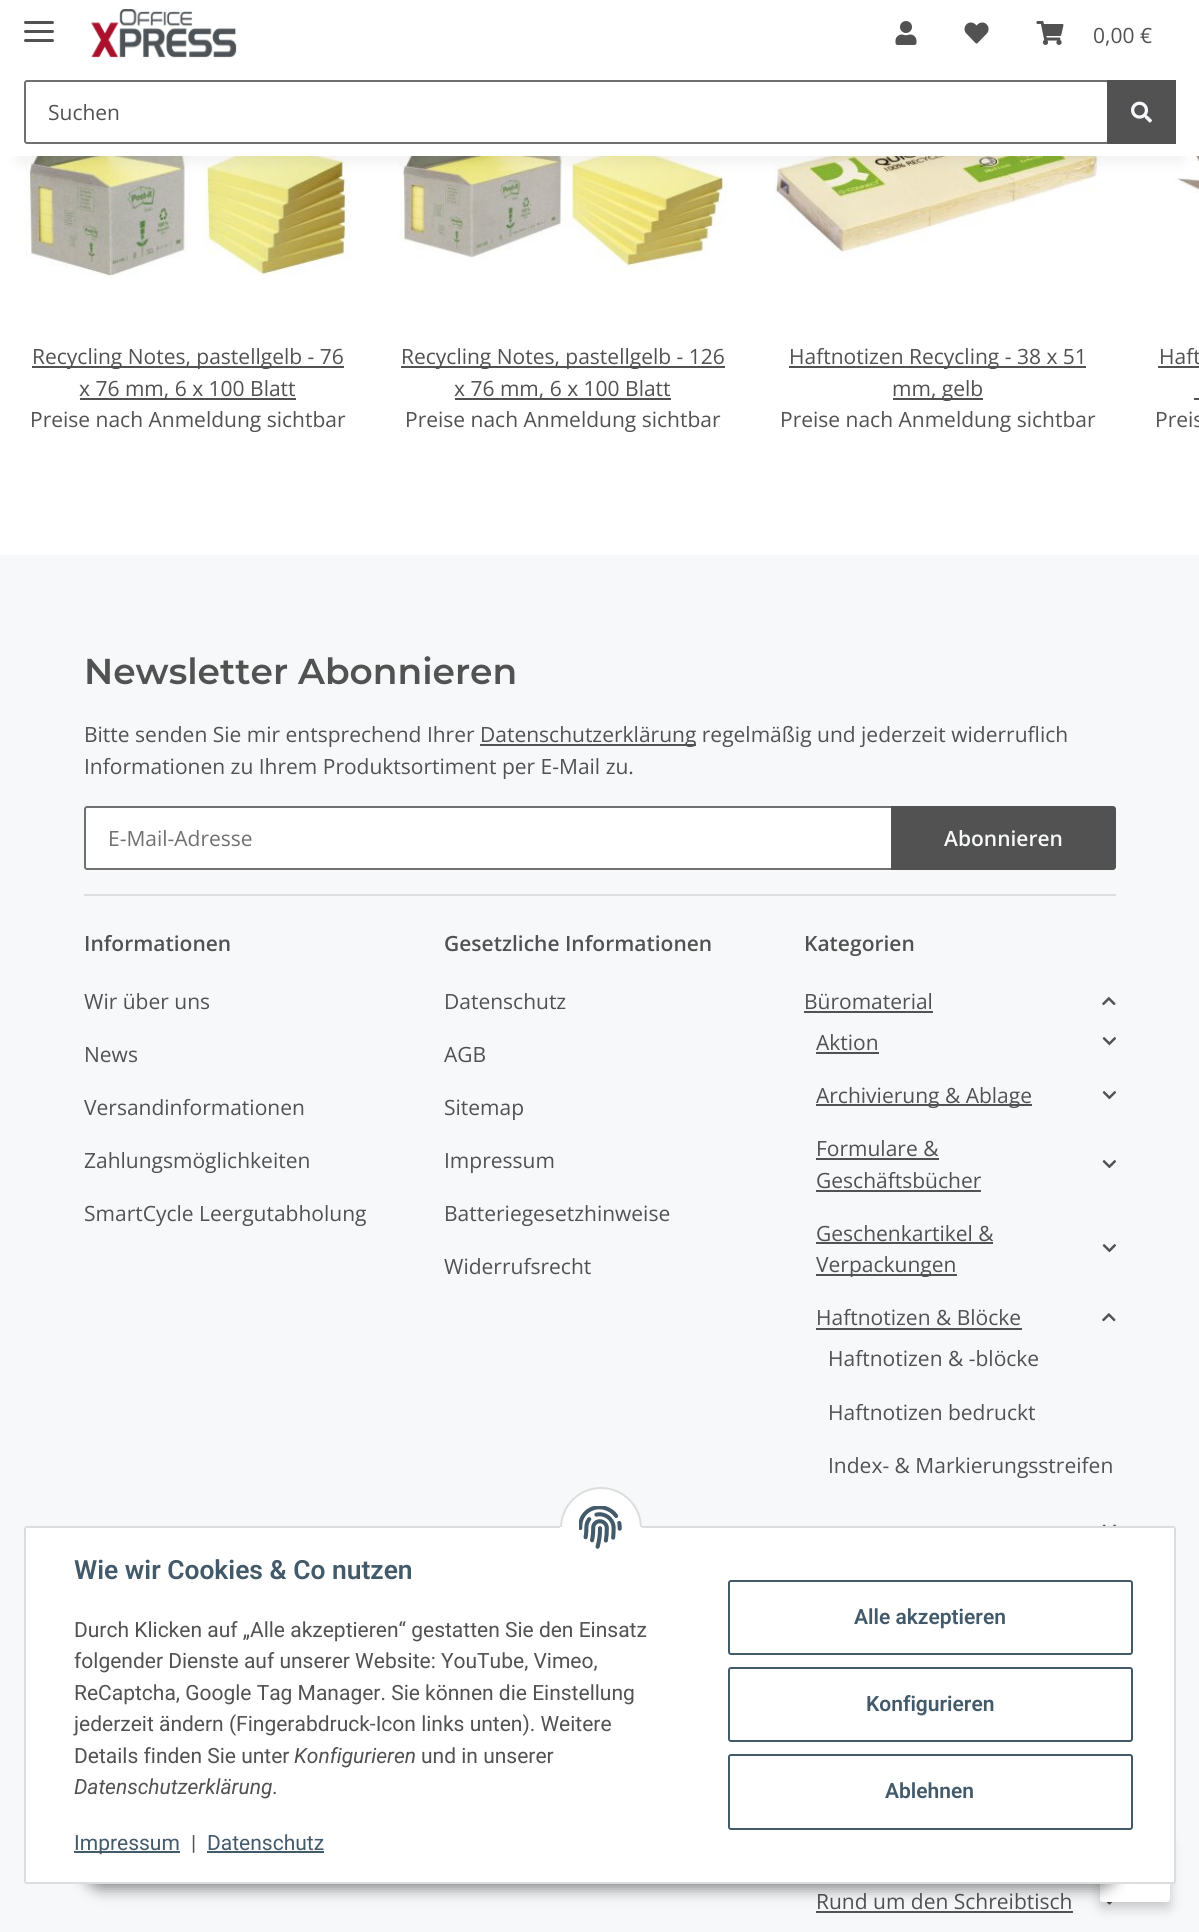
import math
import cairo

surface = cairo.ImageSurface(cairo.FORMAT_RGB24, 1199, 1932)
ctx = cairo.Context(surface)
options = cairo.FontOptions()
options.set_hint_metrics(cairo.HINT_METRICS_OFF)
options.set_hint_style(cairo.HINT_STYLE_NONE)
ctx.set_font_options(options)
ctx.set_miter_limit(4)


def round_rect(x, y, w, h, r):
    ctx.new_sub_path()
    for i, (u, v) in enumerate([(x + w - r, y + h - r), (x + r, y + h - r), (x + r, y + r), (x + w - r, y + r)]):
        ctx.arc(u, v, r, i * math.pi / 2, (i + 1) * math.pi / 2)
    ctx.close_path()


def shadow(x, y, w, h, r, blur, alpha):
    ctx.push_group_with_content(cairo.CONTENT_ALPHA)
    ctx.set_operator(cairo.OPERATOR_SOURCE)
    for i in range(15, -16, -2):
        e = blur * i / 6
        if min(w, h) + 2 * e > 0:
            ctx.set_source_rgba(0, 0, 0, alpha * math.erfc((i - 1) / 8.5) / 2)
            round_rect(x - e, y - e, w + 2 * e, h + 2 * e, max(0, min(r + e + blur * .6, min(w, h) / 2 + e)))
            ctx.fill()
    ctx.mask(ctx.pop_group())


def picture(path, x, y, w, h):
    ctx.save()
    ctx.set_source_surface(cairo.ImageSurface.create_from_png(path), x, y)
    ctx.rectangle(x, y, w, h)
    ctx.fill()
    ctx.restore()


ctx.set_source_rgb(0.961, 0.969, 0.98)
ctx.paint()
ctx.set_source_rgb(1, 1, 1)
ctx.rectangle(0, 156, 1199, 399)
ctx.fill()
picture("img6.png", 24, 156, 327, 120)
picture("img7.png", 399, 156, 327, 117)
picture("img8.png", 774, 156, 327, 103)
picture("img9.png", 1149, 156, 50, 37)
ctx.set_source_rgb(0, 0, 0)
shadow(18, 42, 1164, 120, 0, 7, 0.06)
ctx.set_source_rgb(1, 1, 1)
ctx.rectangle(0, 0, 1199, 156)
ctx.fill()
ctx.set_source_rgb(0.322, 0.322, 0.322)
round_rect(24, 30, 30, 3, 1.5)
ctx.fill()
round_rect(24, 21, 30, 3, 1.5)
ctx.fill()
round_rect(24, 39, 30, 3, 1.5)
ctx.fill()
picture("img1.png", 91, 9, 146, 49)
picture("img2.png", 895, 21, 22, 24)
picture("img3.png", 964, 22, 25, 22)
picture("img4.png", 1036, 21, 28, 24)
ctx.select_font_face("Open Sans")
ctx.set_font_size(21)
ctx.move_to(1093, 43)
ctx.show_text("0,00 €")
round_rect(25, 81, 1083, 62, 2)
ctx.set_source_rgb(0.439, 0.439, 0.439)
ctx.stroke()
ctx.set_source_rgb(0.322, 0.322, 0.322)
ctx.move_to(48, 120)
ctx.show_text("Suchen")
ctx.rectangle(1107, 80, 69, 64)
ctx.fill()
picture("img5.png", 1131, 101, 21, 22)
ctx.rectangle(32, 366, 312, 2)
ctx.fill()
ctx.move_to(32, 364)
ctx.show_text("Recycling Notes, pastellgelb - 76")
ctx.rectangle(80, 398, 216, 2)
ctx.fill()
ctx.move_to(79, 396)
ctx.show_text("x 76 mm, 6 x 100 Blatt")
ctx.move_to(30, 427)
ctx.show_text("Preise nach Anmeldung sichtbar")
ctx.rectangle(401, 366, 324, 2)
ctx.fill()
ctx.move_to(401, 364)
ctx.show_text("Recycling Notes, pastellgelb - 126")
ctx.rectangle(455, 398, 216, 2)
ctx.fill()
ctx.move_to(454, 396)
ctx.show_text("x 76 mm, 6 x 100 Blatt")
ctx.move_to(405, 427)
ctx.show_text("Preise nach Anmeldung sichtbar")
ctx.rectangle(789, 366, 297, 2)
ctx.fill()
ctx.move_to(789, 364)
ctx.show_text("Haftnotizen Recycling - 38 x 51")
ctx.rectangle(893, 398, 90, 2)
ctx.fill()
ctx.move_to(892, 396)
ctx.show_text("mm, gelb")
ctx.move_to(780, 427)
ctx.show_text("Preise nach Anmeldung sichtbar")
ctx.move_to(1159, 364)
ctx.show_text("Haft")
ctx.rectangle(1158, 366, 41, 2)
ctx.fill()
ctx.rectangle(1194, 398, 5, 2)
ctx.fill()
ctx.move_to(1155, 427)
ctx.show_text("Preis")
ctx.select_font_face("Montserrat SemiBold")
ctx.set_font_size(36)
ctx.move_to(84, 684)
ctx.show_text("Newsletter Abonnieren")
ctx.select_font_face("Open Sans")
ctx.set_font_size(21)
ctx.move_to(84, 742)
ctx.show_text("Bitte senden Sie mir entsprechend Ihrer")
ctx.rectangle(480, 744, 216, 2)
ctx.fill()
ctx.move_to(480, 742)
ctx.show_text("Datenschutzerklärung regelmäßig und jederzeit widerruflich")
ctx.move_to(84, 774)
ctx.show_text("Informationen zu Ihrem Produktsortiment per E-Mail zu.")
ctx.set_source_rgb(1, 1, 1)
ctx.rectangle(86, 808, 805, 60)
ctx.fill()
ctx.new_path()
ctx.move_to(87, 807)
ctx.line_to(892, 807)
ctx.line_to(892, 869)
ctx.line_to(87, 869)
ctx.curve_to(86, 869, 85, 868, 85, 867)
ctx.line_to(85, 809)
ctx.curve_to(85, 808, 86, 807, 87, 807)
ctx.close_path()
ctx.set_source_rgb(0.439, 0.439, 0.439)
ctx.stroke()
ctx.move_to(108, 846)
ctx.show_text("E-Mail-Adresse")
ctx.set_source_rgb(0.322, 0.322, 0.322)
ctx.new_path()
ctx.move_to(892, 807)
ctx.line_to(1113, 807)
ctx.curve_to(1114, 807, 1115, 808, 1115, 809)
ctx.line_to(1115, 867)
ctx.curve_to(1115, 868, 1114, 869, 1113, 869)
ctx.line_to(892, 869)
ctx.close_path()
ctx.fill_preserve()
ctx.stroke()
ctx.select_font_face("Open Sans SemiBold")
ctx.set_source_rgb(0.961, 0.969, 0.98)
ctx.move_to(944, 846)
ctx.show_text("Abonnieren")
ctx.set_source_rgb(0.867, 0.871, 0.882)
ctx.rectangle(84, 894, 1032, 2)
ctx.fill()
ctx.set_source_rgb(0.322, 0.322, 0.322)
ctx.move_to(84, 951)
ctx.show_text("Informationen")
ctx.select_font_face("Open Sans")
ctx.move_to(84, 1009)
ctx.show_text("Wir über uns")
ctx.move_to(84, 1062)
ctx.show_text("News")
ctx.move_to(84, 1115)
ctx.show_text("Versandinformationen")
ctx.move_to(84, 1168)
ctx.show_text("Zahlungsmöglichkeiten")
ctx.move_to(84, 1221)
ctx.show_text("SmartCycle Leergutabholung")
ctx.select_font_face("Open Sans SemiBold")
ctx.move_to(444, 951)
ctx.show_text("Gesetzliche Informationen")
ctx.select_font_face("Open Sans")
ctx.move_to(444, 1009)
ctx.show_text("Datenschutz")
ctx.move_to(444, 1062)
ctx.show_text("AGB")
ctx.move_to(444, 1115)
ctx.show_text("Sitemap")
ctx.move_to(444, 1168)
ctx.show_text("Impressum")
ctx.move_to(444, 1221)
ctx.show_text("Batteriegesetzhinweise")
ctx.move_to(444, 1274)
ctx.show_text("Widerrufsrecht")
ctx.select_font_face("Open Sans SemiBold")
ctx.move_to(804, 951)
ctx.show_text("Kategorien")
ctx.select_font_face("Open Sans")
ctx.move_to(804, 1009)
ctx.show_text("Büromaterial")
ctx.rectangle(804, 1011, 129, 2)
ctx.fill()
picture("img10.png", 1102, 997, 14, 9)
ctx.move_to(816, 1050)
ctx.show_text("Aktion")
ctx.rectangle(816, 1052, 63, 2)
ctx.fill()
picture("img11.png", 1102, 1037, 14, 9)
ctx.rectangle(816, 1104, 216, 2)
ctx.fill()
ctx.move_to(816, 1103)
ctx.show_text("Archivierung & Ablage")
picture("img11.png", 1102, 1091, 14, 9)
ctx.move_to(816, 1156)
ctx.show_text("Formulare &")
ctx.rectangle(816, 1158, 123, 2)
ctx.fill()
ctx.move_to(816, 1188)
ctx.show_text("Geschäftsbücher")
ctx.rectangle(816, 1190, 165, 2)
ctx.fill()
picture("img11.png", 1102, 1160, 14, 9)
ctx.move_to(816, 1241)
ctx.show_text("Geschenkartikel &")
ctx.rectangle(816, 1242, 177, 2)
ctx.fill()
ctx.rectangle(816, 1274, 141, 2)
ctx.fill()
ctx.move_to(816, 1272)
ctx.show_text("Verpackungen")
picture("img11.png", 1102, 1244, 14, 9)
ctx.move_to(816, 1325)
ctx.show_text("Haftnotizen & Blöcke")
ctx.rectangle(816, 1328, 206, 2)
ctx.fill()
picture("img12.png", 1102, 1313, 14, 9)
ctx.move_to(828, 1366)
ctx.show_text("Haftnotizen & -blöcke")
ctx.move_to(828, 1420)
ctx.show_text("Haftnotizen bedruckt")
ctx.move_to(828, 1473)
ctx.show_text("Index- & Markierungsstreifen")
picture("img13.png", 1102, 1524, 14, 2)
ctx.move_to(816, 1909)
ctx.show_text("Rund um den Schreibtisch")
ctx.rectangle(816, 1911, 257, 2)
ctx.fill()
picture("img14.png", 1106, 1902, 7, 3)
ctx.set_source_rgb(0, 0, 0)
shadow(1100, 1842, 70, 66, 3, 6, 0.2)
ctx.set_source_rgb(1, 1, 1)
round_rect(1100, 1836, 70, 66, 3)
ctx.fill()
ctx.set_source_rgb(0, 0, 0)
shadow(83, 1841, 1035, 48, 24, 7.5, 0.45)
ctx.set_source_rgb(1, 1, 1)
round_rect(25, 1527, 1150, 356, 2)
ctx.fill_preserve()
ctx.set_source_rgb(0.867, 0.867, 0.867)
ctx.stroke()
ctx.set_source_rgb(1, 1, 1)
ctx.arc(601, 1528, 40, 0, 2 * math.pi)
ctx.fill_preserve()
ctx.set_source_rgb(0.867, 0.867, 0.867)
ctx.stroke()
ctx.set_source_rgb(1, 1, 1)
ctx.rectangle(560, 1527, 82, 42)
ctx.fill()
picture("img15.png", 579, 1506, 43, 43)
ctx.select_font_face("Roboto SemiBold")
ctx.set_font_size(26.4)
ctx.set_source_rgb(0.263, 0.353, 0.42)
ctx.move_to(74, 1579)
ctx.show_text("Wie wir Cookies & Co nutzen")
ctx.select_font_face("Roboto")
ctx.set_font_size(21)
ctx.set_source_rgb(0.322, 0.322, 0.322)
ctx.move_to(74, 1637)
ctx.show_text("Durch Klicken auf „Alle akzeptieren“ gestatten Sie den Einsatz")
ctx.move_to(74, 1668)
ctx.show_text("folgender Dienste auf unserer Website: YouTube, Vimeo,")
ctx.move_to(74, 1700)
ctx.show_text("ReCaptcha, Google Tag Manager. Sie können die Einstellung")
ctx.move_to(74, 1731)
ctx.show_text("jederzeit ändern (Fingerabdruck-Icon links unten). Weitere")
ctx.move_to(74, 1763)
ctx.show_text("Details finden Sie unter")
ctx.select_font_face("Roboto", cairo.FONT_SLANT_ITALIC)
ctx.move_to(294, 1763)
ctx.show_text("Konfigurieren")
ctx.select_font_face("Roboto")
ctx.move_to(421, 1763)
ctx.show_text("und in unserer")
ctx.select_font_face("Roboto", cairo.FONT_SLANT_ITALIC)
ctx.move_to(74, 1794)
ctx.show_text("Datenschutzerklärung")
ctx.select_font_face("Roboto")
ctx.move_to(272, 1794)
ctx.show_text(".")
ctx.set_source_rgb(0.263, 0.353, 0.42)
ctx.rectangle(74, 1851, 106, 2)
ctx.fill()
ctx.move_to(74, 1850)
ctx.show_text("Impressum")
ctx.set_source_rgb(0.322, 0.322, 0.322)
ctx.move_to(191, 1850)
ctx.show_text("|")
ctx.set_source_rgb(0.263, 0.353, 0.42)
ctx.move_to(207, 1850)
ctx.show_text("Datenschutz")
ctx.rectangle(207, 1851, 117, 2)
ctx.fill()
round_rect(729, 1581, 403, 73, 2)
ctx.stroke()
ctx.select_font_face("Roboto SemiBold")
ctx.move_to(854, 1624)
ctx.show_text("Alle akzeptieren")
round_rect(729, 1668, 403, 73, 2)
ctx.stroke()
ctx.move_to(866, 1711)
ctx.show_text("Konfigurieren")
round_rect(729, 1755, 403, 74, 2)
ctx.stroke()
ctx.move_to(885, 1798)
ctx.show_text("Ablehnen")
surface.write_to_png("page.png")
